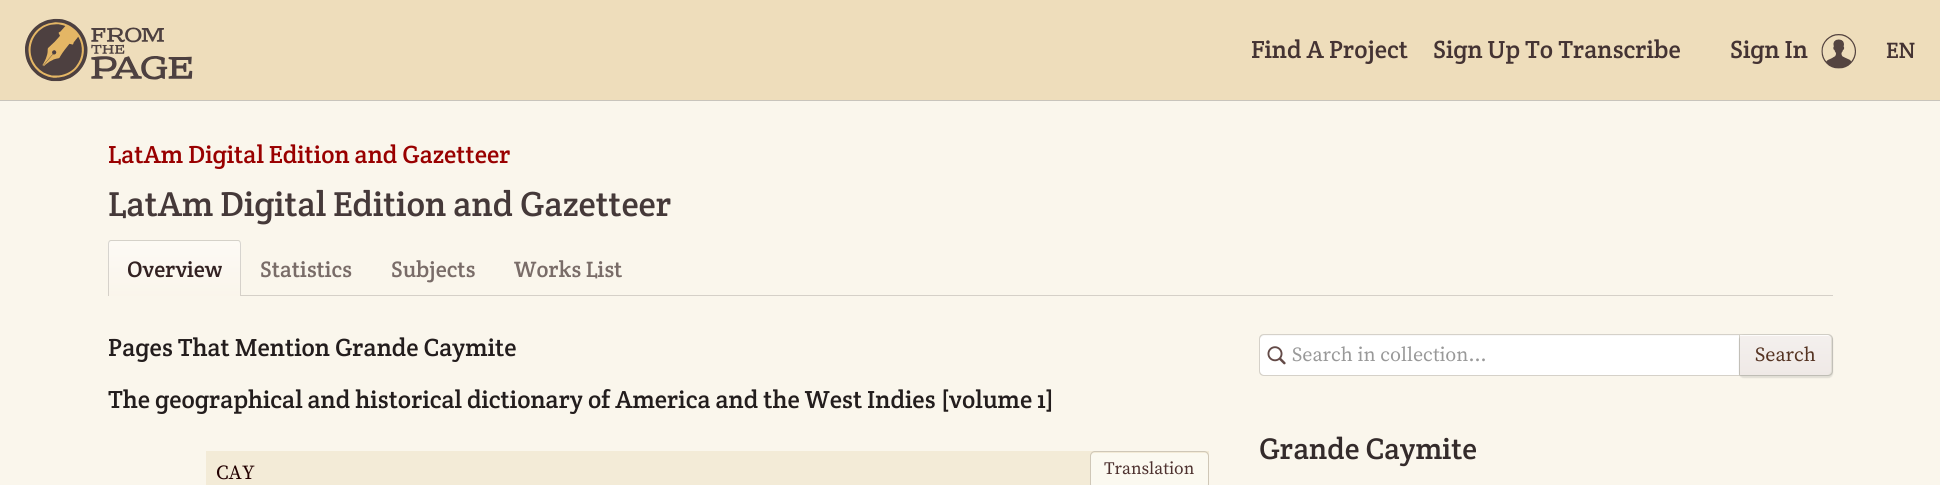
import math
import cairo

surface = cairo.ImageSurface(cairo.FORMAT_RGB24, 1940, 485)
ctx = cairo.Context(surface)
options = cairo.FontOptions()
options.set_hint_metrics(cairo.HINT_METRICS_OFF)
options.set_hint_style(cairo.HINT_STYLE_NONE)
ctx.set_font_options(options)
ctx.set_miter_limit(4)


def round_rect(x, y, w, h, r):
    ctx.new_sub_path()
    for i, (u, v) in enumerate([(x + w - r, y + h - r), (x + r, y + h - r), (x + r, y + r), (x + w - r, y + r)]):
        ctx.arc(u, v, r, i * math.pi / 2, (i + 1) * math.pi / 2)
    ctx.close_path()


def shadow(x, y, w, h, r, blur, alpha):
    ctx.push_group_with_content(cairo.CONTENT_ALPHA)
    ctx.set_operator(cairo.OPERATOR_SOURCE)
    for i in range(15, -16, -2):
        e = blur * i / 6
        if min(w, h) + 2 * e > 0:
            ctx.set_source_rgba(0, 0, 0, alpha * math.erfc((i - 1) / 8.5) / 2)
            round_rect(x - e, y - e, w + 2 * e, h + 2 * e, max(0, min(r + e + blur * .6, min(w, h) / 2 + e)))
            ctx.fill()
    ctx.mask(ctx.pop_group())


def picture(path, x, y, w, h):
    ctx.save()
    ctx.set_source_surface(cairo.ImageSurface.create_from_png(path), x, y)
    ctx.rectangle(x, y, w, h)
    ctx.fill()
    ctx.restore()


ctx.set_source_rgb(0.98, 0.961, 0.922)
ctx.paint()
ctx.set_source_rgb(0.784, 0.769, 0.737)
ctx.rectangle(0, 100, 1940, 1)
ctx.fill()
ctx.set_source_rgb(0.933, 0.867, 0.733)
ctx.rectangle(0, 0, 1940, 100)
ctx.fill()
picture("img1.png", 25, 18, 168, 64)
ctx.select_font_face("Crete Round")
ctx.set_font_size(25)
ctx.set_source_rgb(0.267, 0.2, 0.2)
ctx.move_to(1251, 58)
ctx.show_text("Find A Project")
ctx.move_to(1433, 58)
ctx.show_text("Sign Up To Transcribe")
ctx.move_to(1730, 58)
ctx.show_text("Sign In")
picture("img2.png", 1821, 34, 35, 35)
ctx.set_font_size(22.5)
ctx.move_to(1886, 58)
ctx.show_text("EN")
ctx.set_font_size(25)
ctx.set_source_rgb(0.6, 0, 0)
ctx.move_to(108, 163)
ctx.show_text("LatAm Digital Edition and Gazetteer")
ctx.set_font_size(35)
ctx.set_source_rgb(0.271, 0.224, 0.224)
ctx.move_to(108, 216)
ctx.show_text("LatAm Digital Edition and Gazetteer")
ctx.set_source_rgb(0.835, 0.816, 0.784)
ctx.rectangle(241, 295, 1592, 1)
ctx.fill()
ctx.save()
ctx.new_path()
ctx.move_to(112, 240)
ctx.line_to(237, 240)
ctx.curve_to(239, 240, 241, 242, 241, 244)
ctx.line_to(241, 296)
ctx.line_to(108, 296)
ctx.line_to(108, 244)
ctx.curve_to(108, 242, 110, 240, 112, 240)
ctx.close_path()
ctx.clip()
gradient = cairo.LinearGradient(174, 241, 174, 296)
gradient.add_color_stop_rgba(0, 0.992, 0.98, 0.961, 1)
gradient.add_color_stop_rgba(1, 0.98, 0.961, 0.922, 1)
ctx.set_source(gradient)
ctx.rectangle(108, 241, 133, 55)
ctx.fill()
ctx.restore()
ctx.set_source_rgba(0, 0, 0, 0.15)
ctx.set_fill_rule(cairo.FILL_RULE_EVEN_ODD)
ctx.new_path()
ctx.move_to(111, 240)
ctx.line_to(238, 240)
ctx.curve_to(240, 240, 241, 242, 241, 244)
ctx.line_to(241, 296)
ctx.line_to(108, 296)
ctx.line_to(108, 244)
ctx.curve_to(108, 242, 109, 240, 111, 240)
ctx.close_path()
ctx.move_to(111, 241)
ctx.line_to(238, 241)
ctx.curve_to(239, 241, 240, 242, 240, 244)
ctx.line_to(240, 296)
ctx.line_to(109, 296)
ctx.line_to(109, 244)
ctx.curve_to(109, 242, 110, 241, 111, 241)
ctx.close_path()
ctx.fill()
ctx.set_font_size(22.5)
ctx.set_source_rgb(0.2, 0.133, 0.133)
ctx.move_to(127, 277)
ctx.show_text("Overview")
ctx.set_source_rgb(0.475, 0.424, 0.408)
ctx.move_to(260, 277)
ctx.show_text("Statistics")
ctx.move_to(391, 277)
ctx.show_text("Subjects")
ctx.move_to(514, 277)
ctx.show_text("Works List")
ctx.set_font_size(25)
ctx.set_source_rgb(0.137, 0.114, 0.114)
ctx.move_to(108, 356)
ctx.show_text("Pages That Mention Grande Caymite")
ctx.move_to(108, 408)
ctx.show_text("The geographical and historical dictionary of America and the West Indies [volume 1]")
ctx.set_source_rgb(0.953, 0.918, 0.843)
ctx.rectangle(206, 451, 1003, 34)
ctx.fill()
ctx.select_font_face("Source Serif Pro")
ctx.set_font_size(20)
ctx.set_source_rgb(0.133, 0, 0)
ctx.move_to(216, 479)
ctx.show_text("CAY")
ctx.set_source_rgb(0.984, 0.973, 0.941)
round_rect(1091, 453, 117, 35, 3)
ctx.fill()
round_rect(1090.5, 451.5, 118, 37, 4.5)
ctx.set_source_rgb(0.812, 0.78, 0.718)
ctx.set_line_width(1)
ctx.stroke()
ctx.set_font_size(17.5)
ctx.set_source_rgb(0.302, 0.192, 0.184)
ctx.move_to(1104, 474)
ctx.show_text("Translation")
ctx.set_source_rgb(1, 1, 1)
ctx.new_path()
ctx.move_to(1264, 335)
ctx.line_to(1739, 335)
ctx.line_to(1739, 375)
ctx.line_to(1264, 375)
ctx.curve_to(1262, 375, 1260, 373, 1260, 371)
ctx.line_to(1260, 339)
ctx.curve_to(1260, 337, 1262, 335, 1264, 335)
ctx.close_path()
ctx.fill()
picture("img3.png", 1267, 346, 19, 19)
ctx.set_source_rgba(0, 0, 0, 0.03)
ctx.set_fill_rule(cairo.FILL_RULE_WINDING)
ctx.new_path()
ctx.move_to(1264, 336)
ctx.line_to(1739, 336)
ctx.line_to(1739, 335)
ctx.line_to(1264, 335)
ctx.curve_to(1261, 335, 1260, 337, 1260, 340)
ctx.curve_to(1260, 338, 1262, 336, 1264, 336)
ctx.close_path()
ctx.fill()
ctx.set_source_rgba(0, 0, 0, 0.15)
ctx.set_fill_rule(cairo.FILL_RULE_EVEN_ODD)
ctx.new_path()
ctx.move_to(1264, 334)
ctx.line_to(1739, 334)
ctx.line_to(1739, 376)
ctx.line_to(1264, 376)
ctx.curve_to(1261, 376, 1259, 374, 1259, 371)
ctx.line_to(1259, 339)
ctx.curve_to(1259, 336, 1261, 334, 1264, 334)
ctx.close_path()
ctx.move_to(1264, 335)
ctx.line_to(1739, 335)
ctx.line_to(1739, 375)
ctx.line_to(1264, 375)
ctx.curve_to(1262, 375, 1260, 373, 1260, 371)
ctx.line_to(1260, 339)
ctx.curve_to(1260, 337, 1262, 335, 1264, 335)
ctx.close_path()
ctx.fill()
ctx.set_font_size(20)
ctx.set_source_rgb(0.6, 0.6, 0.6)
ctx.move_to(1292, 361)
ctx.show_text("Search in collection...")
ctx.set_source_rgb(0, 0, 0)
shadow(1739, 335, 94, 43, 5, 0.5, 0.1)
ctx.set_source_rgb(0.937, 0.914, 0.902)
ctx.new_path()
ctx.move_to(1740, 335)
ctx.line_to(1827, 335)
ctx.curve_to(1829, 335, 1831, 337, 1831, 339)
ctx.line_to(1831, 371)
ctx.curve_to(1831, 373, 1829, 375, 1827, 375)
ctx.line_to(1740, 375)
ctx.close_path()
ctx.fill()
gradient = cairo.LinearGradient(1786, 335, 1786, 375)
gradient.add_color_stop_rgba(0, 1, 1, 1, 0.3)
gradient.add_color_stop_rgba(1, 1, 1, 1, 0)
ctx.set_source(gradient)
ctx.new_path()
ctx.move_to(1740, 335)
ctx.line_to(1827, 335)
ctx.curve_to(1829, 335, 1831, 337, 1831, 339)
ctx.line_to(1831, 371)
ctx.curve_to(1831, 373, 1829, 375, 1827, 375)
ctx.line_to(1740, 375)
ctx.close_path()
ctx.fill()
ctx.set_source_rgb(0.992, 0.988, 0.984)
ctx.set_fill_rule(cairo.FILL_RULE_WINDING)
ctx.new_path()
ctx.move_to(1740, 336)
ctx.line_to(1828, 336)
ctx.curve_to(1830, 336, 1831, 338, 1831, 340)
ctx.line_to(1831, 339)
ctx.curve_to(1831, 337, 1829, 335, 1827, 335)
ctx.line_to(1740, 335)
ctx.close_path()
ctx.fill()
ctx.new_path()
ctx.move_to(1739.5, 334.5)
ctx.line_to(1828, 334.5)
ctx.curve_to(1830.5, 334.5, 1832.5, 336.5, 1832.5, 339)
ctx.line_to(1832.5, 371)
ctx.curve_to(1832.5, 373.5, 1830.5, 375.5, 1828, 375.5)
ctx.line_to(1739.5, 375.5)
ctx.close_path()
ctx.set_source_rgba(0, 0, 0, 0.15)
ctx.stroke()
ctx.set_source_rgb(0.333, 0.2, 0.133)
ctx.move_to(1755, 361)
ctx.show_text("Search")
ctx.select_font_face("Crete Round")
ctx.set_font_size(30)
ctx.set_source_rgb(0.204, 0.169, 0.169)
ctx.move_to(1259, 459)
ctx.show_text("Grande Caymite")
surface.write_to_png("page.png")
